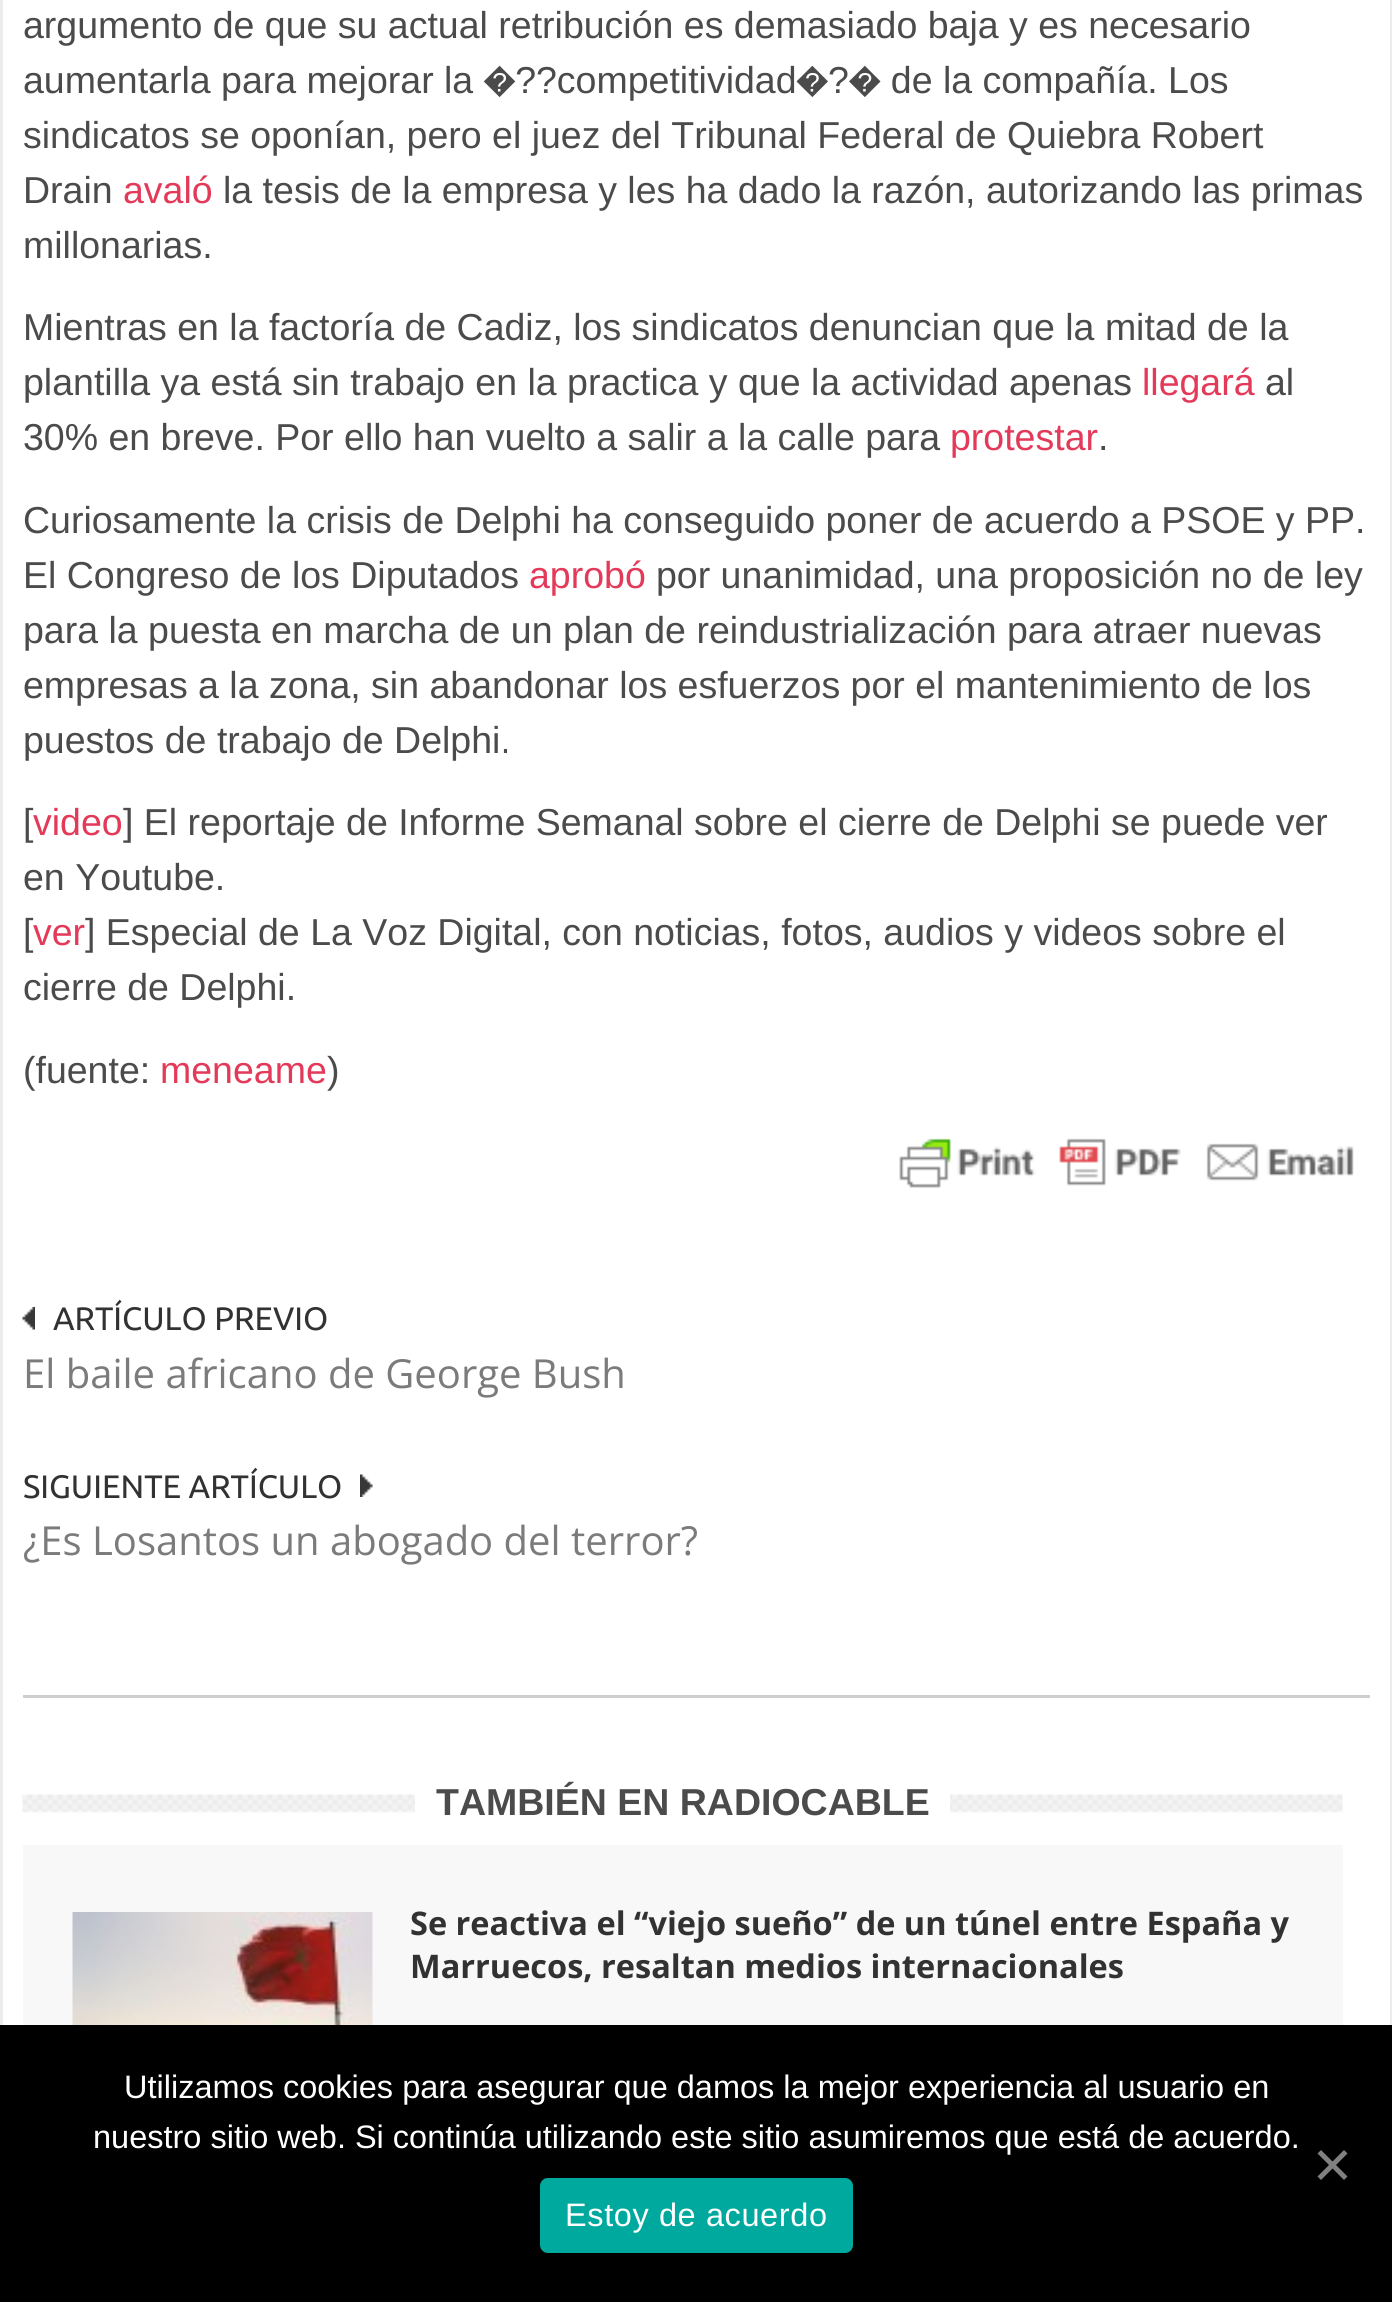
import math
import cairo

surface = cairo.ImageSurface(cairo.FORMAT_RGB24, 1392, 2302)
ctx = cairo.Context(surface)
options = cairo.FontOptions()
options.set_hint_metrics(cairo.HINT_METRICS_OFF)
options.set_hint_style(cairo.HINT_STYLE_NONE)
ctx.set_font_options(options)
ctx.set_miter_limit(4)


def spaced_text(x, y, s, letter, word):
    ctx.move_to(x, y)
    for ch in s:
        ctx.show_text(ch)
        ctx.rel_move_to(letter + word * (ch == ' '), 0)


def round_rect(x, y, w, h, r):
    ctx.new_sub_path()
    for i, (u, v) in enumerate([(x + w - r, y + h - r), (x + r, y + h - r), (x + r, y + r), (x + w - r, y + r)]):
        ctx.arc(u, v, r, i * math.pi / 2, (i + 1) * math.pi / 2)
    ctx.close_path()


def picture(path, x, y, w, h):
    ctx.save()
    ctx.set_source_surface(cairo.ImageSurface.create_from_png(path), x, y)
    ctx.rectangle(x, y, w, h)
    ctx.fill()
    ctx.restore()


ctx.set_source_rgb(1, 1, 1)
ctx.paint()
ctx.set_source_rgb(0.922, 0.922, 0.922)
ctx.rectangle(1390, 0, 2, 2025)
ctx.fill()
ctx.rectangle(0, 0, 3, 2025)
ctx.fill()
ctx.set_source_rgb(0.808, 0.808, 0.808)
ctx.rectangle(23, 1695, 1347, 3)
ctx.fill()
ctx.select_font_face("Arimo")
ctx.set_font_size(37.5)
ctx.set_source_rgb(0.294, 0.294, 0.294)
ctx.move_to(23, 38)
ctx.show_text("argumento de que su actual retribución es demasiado baja y es necesario")
ctx.move_to(23, 93)
ctx.show_text("aumentarla para mejorar la �??competitividad�?� de la compañía. Los")
ctx.move_to(23, 148)
ctx.show_text("sindicatos se oponían, pero el juez del Tribunal Federal de Quiebra Robert")
ctx.move_to(23, 203)
ctx.show_text("Drain")
ctx.set_source_rgb(0.894, 0.227, 0.353)
ctx.move_to(123, 203)
ctx.show_text("avaló")
ctx.set_source_rgb(0.294, 0.294, 0.294)
ctx.move_to(223, 203)
ctx.show_text("la tesis de la empresa y les ha dado la razón, autorizando las primas")
ctx.move_to(23, 258)
ctx.show_text("millonarias.")
ctx.move_to(23, 340)
ctx.show_text("Mientras en la factoría de Cadiz, los sindicatos denuncian que la mitad de la")
ctx.move_to(23, 395)
ctx.show_text("plantilla ya está sin trabajo en la practica y que la actividad apenas")
ctx.set_source_rgb(0.894, 0.227, 0.353)
ctx.move_to(1142, 395)
ctx.show_text("llegará")
ctx.set_source_rgb(0.294, 0.294, 0.294)
ctx.move_to(1265, 395)
ctx.show_text("al")
ctx.move_to(23, 450)
ctx.show_text("30% en breve. Por ello han vuelto a salir a la calle para")
ctx.set_source_rgb(0.894, 0.227, 0.353)
ctx.move_to(950, 450)
ctx.show_text("protestar")
ctx.set_source_rgb(0.294, 0.294, 0.294)
ctx.move_to(1098, 450)
ctx.show_text(".")
ctx.move_to(23, 533)
ctx.show_text("Curiosamente la crisis de Delphi ha conseguido poner de acuerdo a PSOE y PP.")
ctx.move_to(23, 588)
ctx.show_text("El Congreso de los Diputados")
ctx.set_source_rgb(0.894, 0.227, 0.353)
ctx.move_to(529, 588)
ctx.show_text("aprobó")
ctx.set_source_rgb(0.294, 0.294, 0.294)
ctx.move_to(656, 588)
ctx.show_text("por unanimidad, una proposición no de ley")
ctx.move_to(23, 643)
ctx.show_text("para la puesta en marcha de un plan de reindustrialización para atraer nuevas")
ctx.move_to(23, 698)
ctx.show_text("empresas a la zona, sin abandonar los esfuerzos por el mantenimiento de los")
ctx.move_to(23, 753)
ctx.show_text("puestos de trabajo de Delphi.")
ctx.move_to(23, 835)
ctx.show_text("[")
ctx.set_source_rgb(0.894, 0.227, 0.353)
ctx.move_to(33, 835)
ctx.show_text("video")
ctx.set_source_rgb(0.294, 0.294, 0.294)
ctx.move_to(123, 835)
ctx.show_text("] El reportaje de Informe Semanal sobre el cierre de Delphi se puede ver")
ctx.move_to(23, 890)
ctx.show_text("en Youtube.")
ctx.move_to(23, 945)
ctx.show_text("[")
ctx.set_source_rgb(0.894, 0.227, 0.353)
ctx.move_to(33, 945)
ctx.show_text("ver")
ctx.set_source_rgb(0.294, 0.294, 0.294)
ctx.move_to(85, 945)
ctx.show_text("] Especial de La Voz Digital, con noticias, fotos, audios y videos sobre el")
ctx.move_to(23, 1000)
ctx.show_text("cierre de Delphi.")
ctx.move_to(23, 1083)
ctx.show_text("(fuente:")
ctx.set_source_rgb(0.894, 0.227, 0.353)
ctx.move_to(160, 1083)
ctx.show_text("meneame")
ctx.set_source_rgb(0.294, 0.294, 0.294)
ctx.move_to(327, 1083)
ctx.show_text(")")
picture("img1.png", 899, 1138, 455, 50)
picture("img2.png", 22, 1307, 13, 23)
ctx.select_font_face("Ubuntu")
ctx.set_font_size(32.5)
ctx.set_source_rgb(0.2, 0.196, 0.196)
ctx.move_to(53, 1330)
ctx.show_text("ARTÍCULO PREVIO")
ctx.select_font_face("Open Sans")
ctx.set_font_size(40)
ctx.set_source_rgb(0.482, 0.482, 0.482)
ctx.move_to(23, 1388)
ctx.show_text("El baile africano de George Bush")
ctx.select_font_face("Ubuntu")
ctx.set_font_size(32.5)
ctx.set_source_rgb(0.2, 0.196, 0.196)
ctx.move_to(23, 1498)
ctx.show_text("SIGUIENTE ARTÍCULO")
picture("img3.png", 360, 1474, 13, 23)
ctx.select_font_face("Open Sans")
ctx.set_font_size(40)
ctx.set_source_rgb(0.482, 0.482, 0.482)
ctx.move_to(23, 1555)
ctx.show_text("¿Es Losantos un abogado del terror?")
ctx.set_source_rgb(0.969, 0.969, 0.969)
ctx.rectangle(23, 1845, 1320, 180)
ctx.fill()
picture("img4.png", 22, 1794, 1321, 19)
ctx.set_source_rgb(1, 1, 1)
ctx.rectangle(415, 1794, 535, 19)
ctx.fill()
ctx.select_font_face("Arimo", cairo.FONT_SLANT_NORMAL, cairo.FONT_WEIGHT_BOLD)
ctx.set_font_size(37.5)
ctx.set_source_rgb(0.294, 0.294, 0.294)
ctx.move_to(436, 1815)
ctx.show_text("TAMBIÉN EN RADIOCABLE")
picture("img5.png", 72, 1912, 301, 113)
ctx.select_font_face("Open Sans", cairo.FONT_SLANT_NORMAL, cairo.FONT_WEIGHT_BOLD)
ctx.set_font_size(32.5)
ctx.set_source_rgb(0.2, 0.196, 0.196)
ctx.move_to(410, 1935)
ctx.show_text("Se reactiva el “viejo sueño” de un túnel entre España y")
ctx.move_to(410, 1978)
ctx.show_text("Marruecos, resaltan medios internacionales")
ctx.set_source_rgb(0, 0, 0)
ctx.rectangle(0, 2025, 1392, 277)
ctx.fill()
ctx.select_font_face("Liberation Sans")
ctx.set_source_rgb(1, 1, 1)
ctx.move_to(124, 2098)
ctx.show_text("Utilizamos cookies para asegurar que damos la mejor experiencia al usuario en")
ctx.move_to(93, 2148)
ctx.show_text("nuestro sitio web. Si continúa utilizando este sitio asumiremos que está de acuerdo.")
ctx.set_source_rgb(0.502, 0.502, 0.502)
ctx.new_path()
ctx.move_to(1344, 2150)
ctx.line_to(1347.5, 2153.5)
ctx.line_to(1321, 2180)
ctx.line_to(1317.5, 2176.5)
ctx.close_path()
ctx.fill()
ctx.new_path()
ctx.move_to(1317.5, 2153.5)
ctx.line_to(1321, 2150)
ctx.line_to(1347.5, 2176.5)
ctx.line_to(1344, 2180)
ctx.close_path()
ctx.fill()
ctx.set_source_rgb(0, 0.663, 0.616)
round_rect(540, 2178, 313, 75, 8)
ctx.fill()
ctx.set_source_rgb(1, 1, 1)
spaced_text(565, 2226, "Estoy de acuerdo", 0.6, 0)
surface.write_to_png("page.png")
